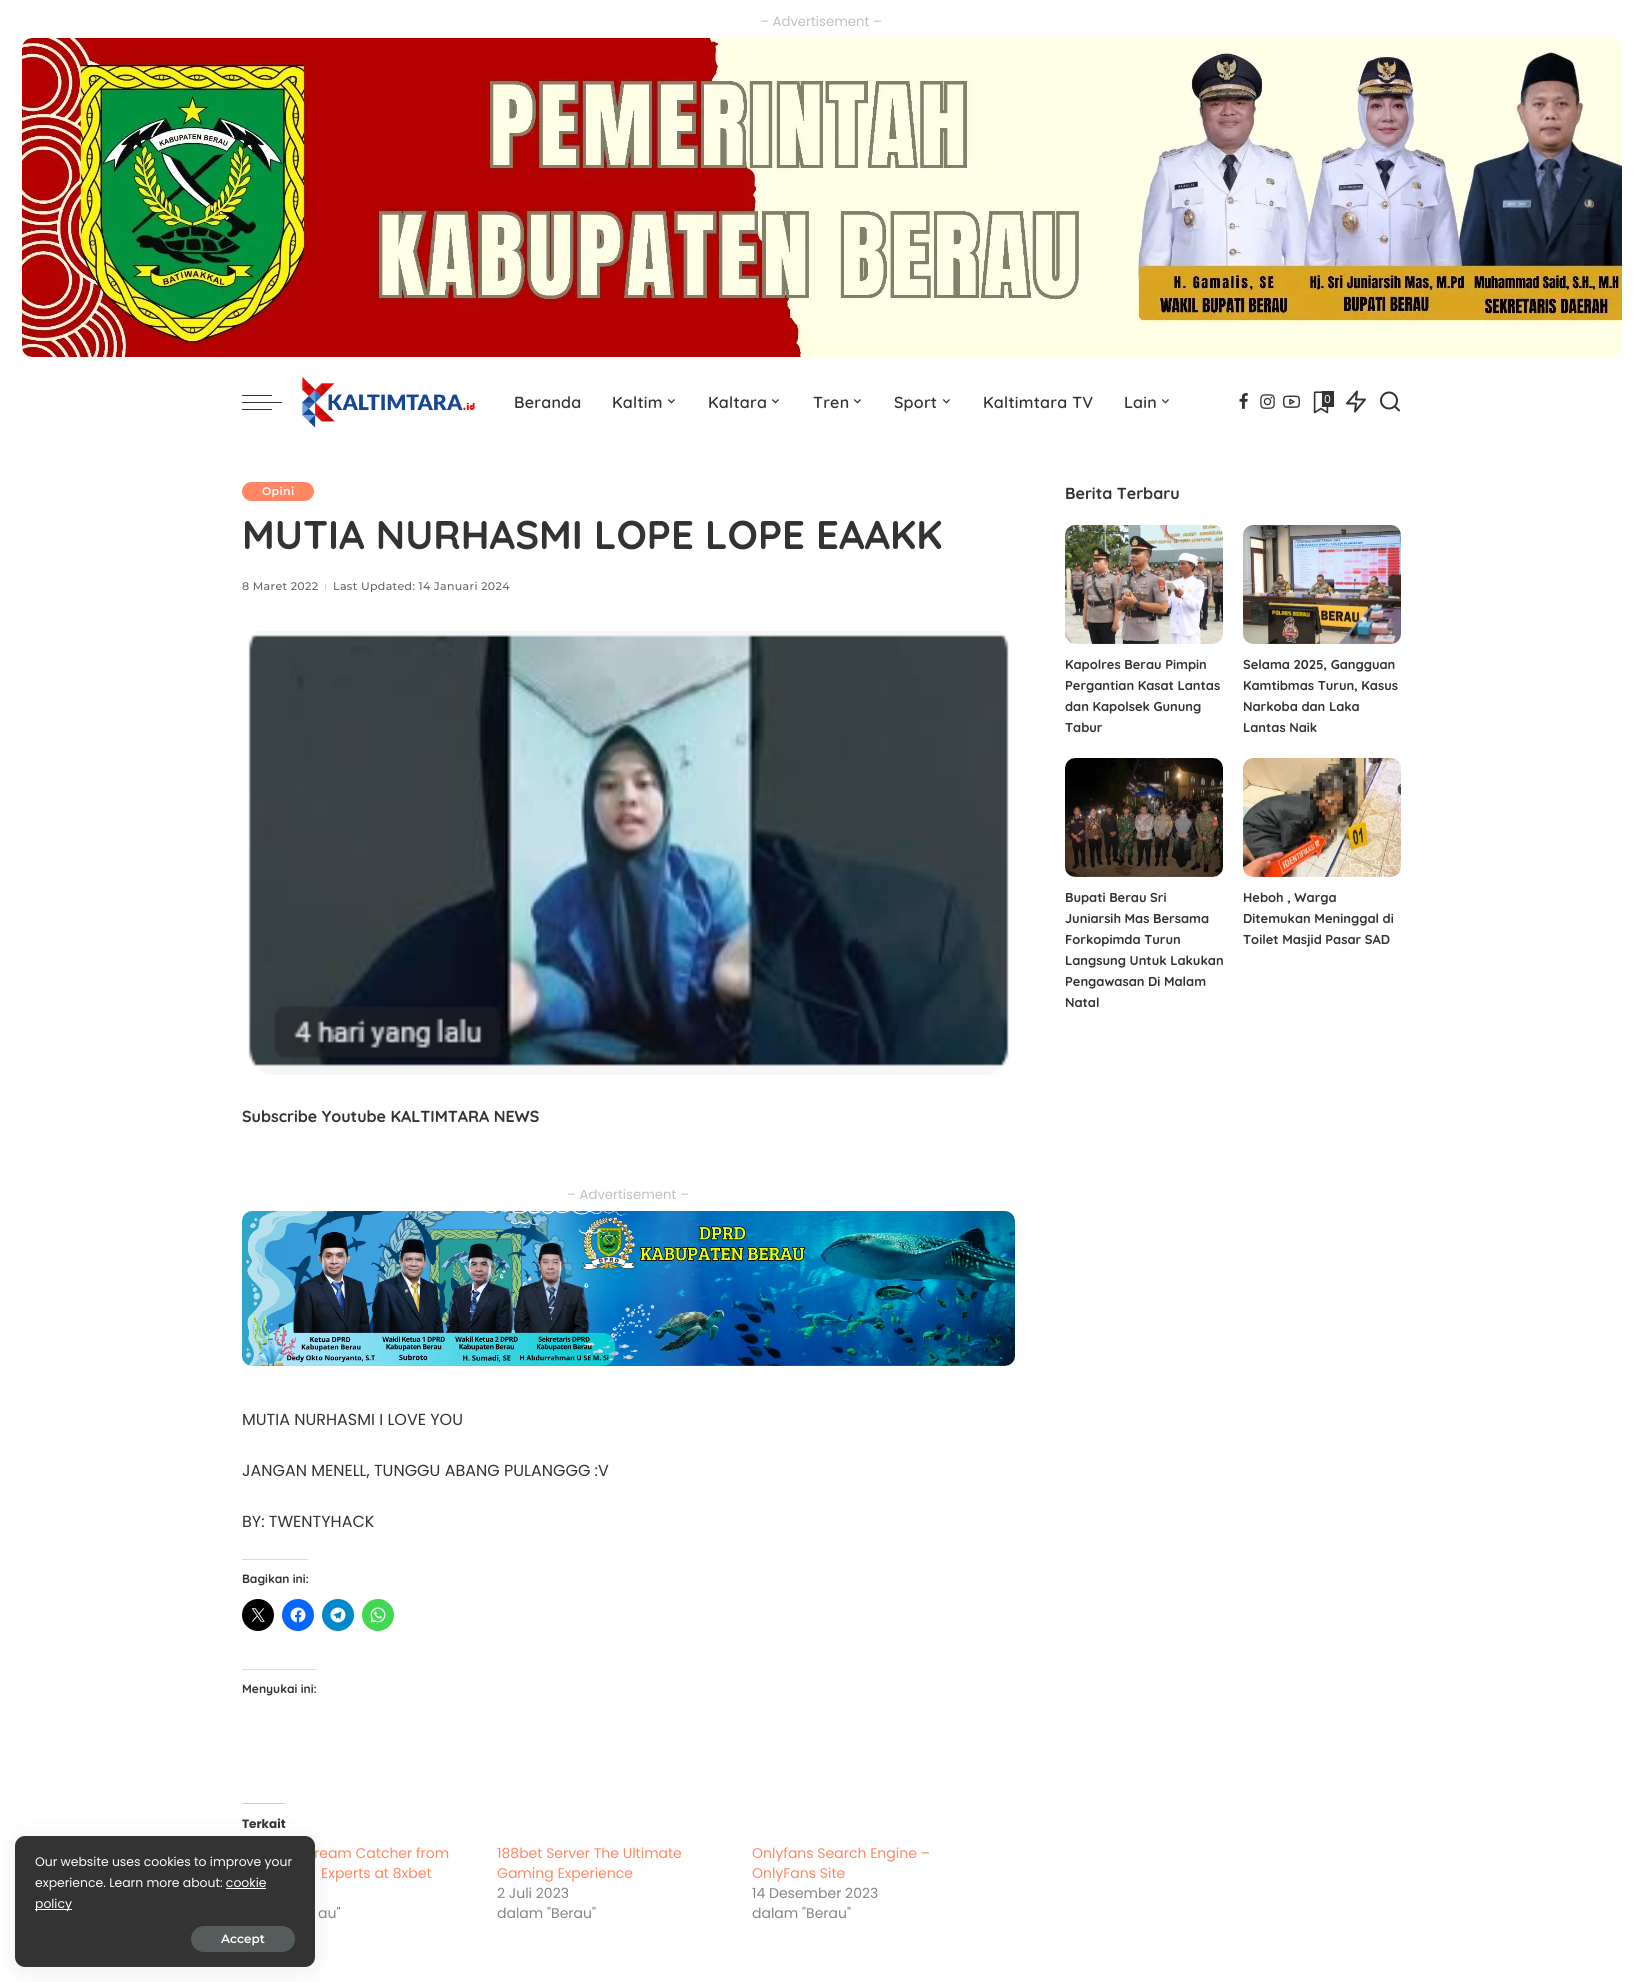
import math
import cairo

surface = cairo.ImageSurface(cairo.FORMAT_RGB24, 1643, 1982)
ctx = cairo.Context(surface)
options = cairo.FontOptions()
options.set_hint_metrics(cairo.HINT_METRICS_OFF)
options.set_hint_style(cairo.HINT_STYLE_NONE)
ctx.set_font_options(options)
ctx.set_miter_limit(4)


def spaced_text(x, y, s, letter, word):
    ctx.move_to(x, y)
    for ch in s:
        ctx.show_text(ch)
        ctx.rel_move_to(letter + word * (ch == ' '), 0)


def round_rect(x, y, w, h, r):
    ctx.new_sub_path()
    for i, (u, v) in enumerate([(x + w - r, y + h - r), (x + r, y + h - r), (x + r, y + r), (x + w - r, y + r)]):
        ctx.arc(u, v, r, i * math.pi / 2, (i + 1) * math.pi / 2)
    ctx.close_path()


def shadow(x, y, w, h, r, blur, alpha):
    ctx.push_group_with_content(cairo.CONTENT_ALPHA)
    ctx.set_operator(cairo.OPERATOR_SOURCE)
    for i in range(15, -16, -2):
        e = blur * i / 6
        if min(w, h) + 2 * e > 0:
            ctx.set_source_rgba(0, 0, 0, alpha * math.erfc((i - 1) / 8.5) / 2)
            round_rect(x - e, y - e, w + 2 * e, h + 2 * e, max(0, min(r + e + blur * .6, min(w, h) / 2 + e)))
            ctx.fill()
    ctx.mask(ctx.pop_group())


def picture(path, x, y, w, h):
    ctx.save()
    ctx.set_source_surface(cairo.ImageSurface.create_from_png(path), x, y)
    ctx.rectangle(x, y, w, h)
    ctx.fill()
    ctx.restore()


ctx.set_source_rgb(1, 1, 1)
ctx.paint()
ctx.set_source_rgb(0.8, 0.8, 0.8)
ctx.rectangle(242, 1803, 43, 1)
ctx.fill()
ctx.set_source_rgb(0, 0, 0)
shadow(15, 1840, 300, 131, 10, 15, 0.07)
ctx.select_font_face("Poppins")
ctx.set_font_size(14)
ctx.set_source_rgb(1, 0.529, 0.388)
ctx.move_to(314, 1858)
ctx.show_text("ream Catcher from")
ctx.set_source_rgb(0.2, 0.2, 0.2)
round_rect(15, 1836, 300, 131, 10)
ctx.fill()
ctx.set_font_size(12.4)
ctx.set_source_rgb(1, 1, 1)
ctx.move_to(35, 1866)
ctx.show_text("Our website uses cookies to improve your")
ctx.move_to(35, 1887)
ctx.show_text("experience. Learn more about: cookie")
ctx.rectangle(35, 1909, 37, 1)
ctx.fill()
ctx.move_to(35, 1908)
ctx.show_text("policy")
ctx.rectangle(226, 1888, 40, 1)
ctx.fill()
ctx.set_source_rgb(0.337, 0.361, 0.361)
round_rect(191, 1926, 104, 26, 13)
ctx.fill()
ctx.select_font_face("Montserrat SemiBold")
ctx.set_font_size(12)
ctx.set_source_rgb(1, 1, 1)
ctx.move_to(221, 1943)
ctx.show_text("Accept")
ctx.select_font_face("Poppins")
ctx.set_font_size(13.25)
ctx.set_source_rgb(0.753, 0.753, 0.753)
ctx.move_to(760, 26)
ctx.show_text("– Advertisement –")
picture("img1.png", 22, 38, 1600, 319)
ctx.set_source_rgb(0.2, 0.2, 0.2)
ctx.rectangle(242, 402, 40, 1)
ctx.fill()
ctx.rectangle(242, 395, 30, 1)
ctx.fill()
ctx.rectangle(242, 409, 30, 1)
ctx.fill()
picture("img2.png", 302, 377, 173, 51)
ctx.select_font_face("Quicksand SemiBold")
ctx.set_font_size(16)
spaced_text(514, 408, "Beranda", 0.25, 0)
spaced_text(612, 408, "Kaltim", 0.25, 0)
picture("img3.png", 667, 399, 8, 5)
spaced_text(708, 408, "Kaltara", 0.25, 0)
picture("img3.png", 771, 399, 8, 5)
spaced_text(813, 408, "Tren", 0.25, 0)
picture("img3.png", 853, 399, 8, 5)
spaced_text(894, 408, "Sport", 0.25, 0)
picture("img3.png", 942, 399, 8, 5)
spaced_text(983, 408, "Kaltimtara TV", 0.25, 0)
spaced_text(1124, 408, "Lain", 0.25, 0)
picture("img3.png", 1161, 399, 8, 5)
picture("img4.png", 1239, 393, 9, 16)
picture("img5.png", 1260, 394, 15, 15)
picture("img6.png", 1283, 395, 17, 13)
picture("img7.png", 1313, 391, 16, 23)
ctx.rectangle(1322, 391, 12, 16)
ctx.fill()
ctx.select_font_face("Poppins")
ctx.set_font_size(11)
ctx.set_source_rgb(1, 1, 1)
ctx.move_to(1324, 403)
ctx.show_text("0")
picture("img8.png", 1346, 390, 20, 23)
picture("img9.png", 1380, 391, 20, 21)
ctx.set_source_rgb(1, 0.529, 0.388)
round_rect(242, 482, 72, 19, 9.5)
ctx.fill()
ctx.select_font_face("Montserrat SemiBold")
ctx.set_source_rgb(1, 1, 1)
spaced_text(262, 495, "Opini", 0.35, 0)
ctx.select_font_face("Quicksand", cairo.FONT_SLANT_NORMAL, cairo.FONT_WEIGHT_BOLD)
ctx.set_font_size(40)
ctx.set_source_rgb(0.2, 0.2, 0.2)
ctx.move_to(242, 549)
ctx.show_text("MUTIA NURHASMI LOPE LOPE EAAKK")
ctx.select_font_face("Montserrat Medium")
ctx.set_font_size(11)
ctx.set_source_rgb(0.4, 0.4, 0.4)
spaced_text(242, 590, "8 Maret 2022", 0.35, 0)
ctx.set_source_rgb(0.82, 0.82, 0.82)
ctx.rectangle(325, 584, 1, 6)
ctx.fill()
ctx.set_source_rgb(0.4, 0.4, 0.4)
spaced_text(333, 590, "Last Updated: 14 Januari 2024", 0.35, 0)
picture("img10.png", 248, 631, 761, 444)
ctx.select_font_face("Quicksand", cairo.FONT_SLANT_NORMAL, cairo.FONT_WEIGHT_BOLD)
ctx.set_font_size(16)
ctx.set_source_rgb(0.2, 0.2, 0.2)
ctx.move_to(242, 1122)
ctx.show_text("Subscribe Youtube KALTIMTARA NEWS")
ctx.select_font_face("Poppins")
ctx.set_font_size(13.25)
ctx.set_source_rgb(0.753, 0.753, 0.753)
ctx.move_to(567, 1199)
ctx.show_text("– Advertisement –")
picture("img11.png", 242, 1211, 773, 155)
ctx.set_font_size(16)
ctx.set_source_rgb(0.2, 0.2, 0.2)
ctx.move_to(242, 1425)
ctx.show_text("MUTIA NURHASMI I LOVE YOU")
ctx.move_to(242, 1476)
ctx.show_text("JANGAN MENELL, TUNGGU ABANG PULANGGG :V")
ctx.move_to(242, 1527)
ctx.show_text("BY: TWENTYHACK")
ctx.set_source_rgb(0.863, 0.863, 0.871)
ctx.rectangle(242, 1559, 66, 1)
ctx.fill()
ctx.select_font_face("Quicksand", cairo.FONT_SLANT_NORMAL, cairo.FONT_WEIGHT_BOLD)
ctx.set_font_size(12)
ctx.set_source_rgb(0.2, 0.2, 0.2)
ctx.move_to(242, 1583)
ctx.show_text("Bagikan ini:")
ctx.set_source_rgb(0, 0, 0)
ctx.new_path()
ctx.arc(258, 1615, 16, 0, 2 * math.pi)
ctx.fill()
picture("img12.png", 251, 1608, 14, 14)
ctx.set_source_rgb(0.031, 0.4, 1)
ctx.arc(298, 1615, 16, 0, 2 * math.pi)
ctx.fill()
picture("img13.png", 290, 1607, 16, 16)
ctx.set_source_rgb(0, 0.533, 0.8)
ctx.arc(338, 1615, 16, 0, 2 * math.pi)
ctx.fill()
picture("img14.png", 330, 1607, 16, 16)
ctx.set_source_rgb(0.263, 0.847, 0.329)
ctx.arc(378, 1615, 16, 0, 2 * math.pi)
ctx.fill()
picture("img15.png", 370, 1607, 16, 16)
ctx.set_source_rgb(0.863, 0.863, 0.871)
ctx.rectangle(242, 1669, 74, 1)
ctx.fill()
ctx.set_source_rgb(0.2, 0.2, 0.2)
ctx.move_to(242, 1693)
ctx.show_text("Menyukai ini:")
ctx.select_font_face("Poppins", cairo.FONT_SLANT_NORMAL, cairo.FONT_WEIGHT_BOLD)
ctx.move_to(242, 1828)
ctx.show_text("Terkait")
ctx.select_font_face("Poppins")
ctx.set_font_size(14)
ctx.set_source_rgb(1, 0.529, 0.388)
ctx.move_to(321, 1878)
ctx.show_text("Experts at 8xbet")
ctx.set_source_rgb(0.522, 0.522, 0.522)
ctx.move_to(318, 1918)
ctx.show_text("au\"")
ctx.set_source_rgb(1, 0.529, 0.388)
ctx.move_to(497, 1858)
ctx.show_text("188bet Server The Ultimate")
ctx.move_to(497, 1878)
ctx.show_text("Gaming Experience")
ctx.set_source_rgb(0.522, 0.522, 0.522)
ctx.move_to(497, 1898)
ctx.show_text("2 Juli 2023")
ctx.move_to(497, 1918)
ctx.show_text("dalam \"Berau\"")
ctx.set_source_rgb(1, 0.529, 0.388)
ctx.move_to(752, 1858)
ctx.show_text("Onlyfans Search Engine –")
ctx.move_to(752, 1878)
ctx.show_text("OnlyFans Site")
ctx.set_source_rgb(0.522, 0.522, 0.522)
ctx.move_to(752, 1898)
ctx.show_text("14 Desember 2023")
ctx.move_to(752, 1918)
ctx.show_text("dalam \"Berau\"")
ctx.select_font_face("Quicksand", cairo.FONT_SLANT_NORMAL, cairo.FONT_WEIGHT_BOLD)
ctx.set_font_size(16)
ctx.set_source_rgb(0.2, 0.2, 0.2)
ctx.move_to(1065, 499)
ctx.show_text("Berita Terbaru")
picture("img16.png", 1065, 525, 158, 119)
ctx.set_font_size(12.9)
ctx.move_to(1065, 669)
ctx.show_text("Kapolres Berau Pimpin")
ctx.move_to(1065, 690)
ctx.show_text("Pergantian Kasat Lantas")
ctx.move_to(1065, 711)
ctx.show_text("dan Kapolsek Gunung")
ctx.move_to(1065, 732)
ctx.show_text("Tabur")
picture("img17.png", 1243, 525, 158, 119)
ctx.move_to(1243, 669)
ctx.show_text("Selama 2025, Gangguan")
ctx.move_to(1243, 690)
ctx.show_text("Kamtibmas Turun, Kasus")
ctx.move_to(1243, 711)
ctx.show_text("Narkoba dan Laka")
ctx.move_to(1243, 732)
ctx.show_text("Lantas Naik")
picture("img18.png", 1065, 758, 158, 119)
ctx.move_to(1065, 902)
ctx.show_text("Bupati Berau Sri")
ctx.move_to(1065, 923)
ctx.show_text("Juniarsih Mas Bersama")
ctx.move_to(1065, 944)
ctx.show_text("Forkopimda Turun")
ctx.move_to(1065, 965)
ctx.show_text("Langsung Untuk Lakukan")
ctx.move_to(1065, 986)
ctx.show_text("Pengawasan Di Malam")
ctx.move_to(1065, 1007)
ctx.show_text("Natal")
picture("img19.png", 1243, 758, 158, 119)
ctx.move_to(1243, 902)
ctx.show_text("Heboh , Warga")
ctx.move_to(1243, 923)
ctx.show_text("Ditemukan Meninggal di")
ctx.move_to(1243, 944)
ctx.show_text("Toilet Masjid Pasar SAD")
surface.write_to_png("page.png")
